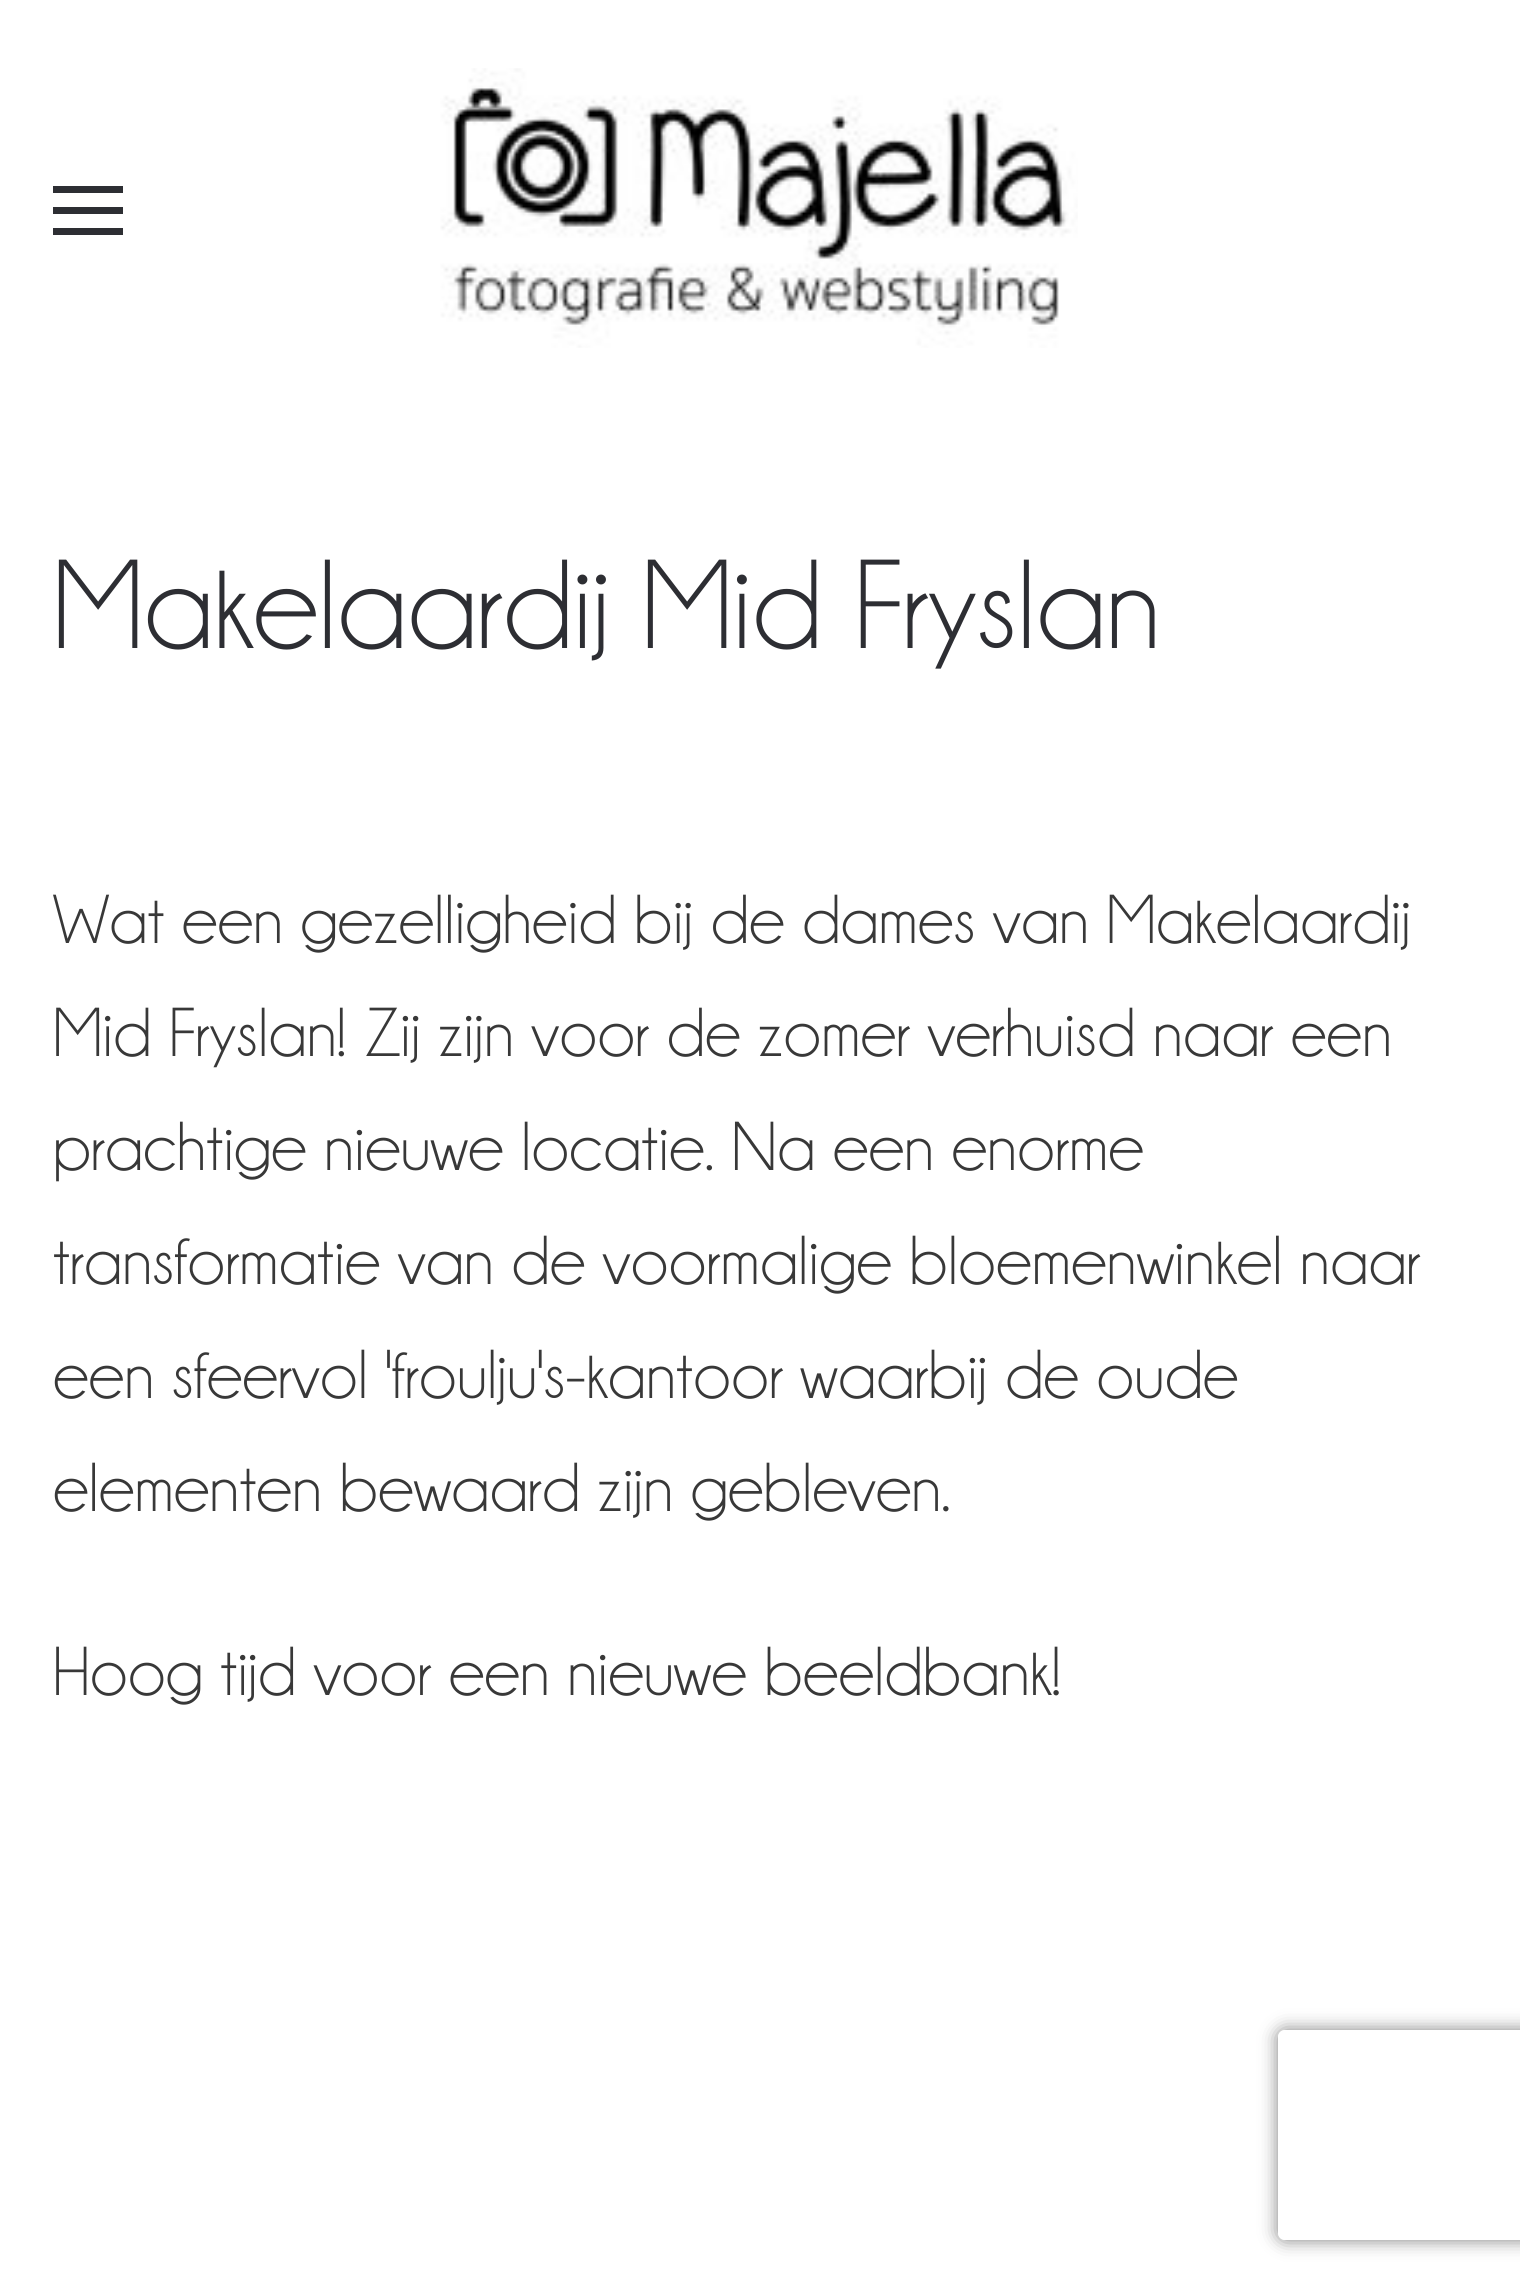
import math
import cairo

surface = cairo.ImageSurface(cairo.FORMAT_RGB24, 1520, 2286)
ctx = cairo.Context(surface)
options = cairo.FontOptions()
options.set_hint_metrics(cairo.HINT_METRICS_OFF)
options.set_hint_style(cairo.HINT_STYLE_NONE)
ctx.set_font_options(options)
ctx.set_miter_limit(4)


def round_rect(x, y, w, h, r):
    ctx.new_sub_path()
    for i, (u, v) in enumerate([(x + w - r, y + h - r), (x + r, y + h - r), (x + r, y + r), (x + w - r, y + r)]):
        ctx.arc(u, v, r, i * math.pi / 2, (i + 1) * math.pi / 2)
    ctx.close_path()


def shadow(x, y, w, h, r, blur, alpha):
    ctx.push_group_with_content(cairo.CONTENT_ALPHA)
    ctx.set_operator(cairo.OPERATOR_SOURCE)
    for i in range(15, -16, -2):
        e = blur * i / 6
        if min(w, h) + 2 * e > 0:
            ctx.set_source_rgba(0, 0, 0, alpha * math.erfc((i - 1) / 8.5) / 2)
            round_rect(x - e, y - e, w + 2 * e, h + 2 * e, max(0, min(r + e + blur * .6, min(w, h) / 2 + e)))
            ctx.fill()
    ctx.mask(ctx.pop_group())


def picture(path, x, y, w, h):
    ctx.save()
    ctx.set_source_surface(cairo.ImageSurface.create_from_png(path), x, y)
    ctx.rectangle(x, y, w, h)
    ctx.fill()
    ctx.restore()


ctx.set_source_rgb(1, 1, 1)
ctx.paint()
ctx.set_source_rgb(0.176, 0.18, 0.2)
ctx.rectangle(53, 186, 70, 7)
ctx.fill()
ctx.rectangle(53, 207, 70, 7)
ctx.fill()
ctx.rectangle(53, 228, 70, 7)
ctx.fill()
picture("img1.png", 440, 68, 638, 280)
ctx.select_font_face("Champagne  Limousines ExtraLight")
ctx.set_font_size(128)
ctx.move_to(53, 648)
ctx.show_text("Makelaardij Mid Fryslan")
ctx.set_font_size(70)
ctx.set_source_rgb(0.22, 0.22, 0.22)
ctx.move_to(53, 943)
ctx.show_text("Wat een gezelligheid bij de dames van Makelaardij")
ctx.move_to(53, 1056)
ctx.show_text("Mid Fryslan! Zij zijn voor de zomer verhuisd naar een")
ctx.move_to(53, 1170)
ctx.show_text("prachtige nieuwe locatie. Na een enorme")
ctx.move_to(53, 1284)
ctx.show_text("transformatie van de voormalige bloemenwinkel naar")
ctx.move_to(53, 1398)
ctx.show_text("een sfeervol 'froulju's-kantoor waarbij de oude")
ctx.move_to(53, 1511)
ctx.show_text("elementen bewaard zijn gebleven.")
ctx.move_to(53, 1695)
ctx.show_text("Hoog tijd voor een nieuwe beeldbank!")
ctx.save()
ctx.set_fill_rule(cairo.FILL_RULE_EVEN_ODD)
ctx.new_path()
ctx.move_to(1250, 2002)
ctx.line_to(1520, 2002)
ctx.line_to(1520, 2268)
ctx.line_to(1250, 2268)
ctx.close_path()
ctx.move_to(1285, 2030)
ctx.line_to(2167, 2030)
ctx.curve_to(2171, 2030, 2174, 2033, 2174, 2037)
ctx.line_to(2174, 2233)
ctx.curve_to(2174, 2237, 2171, 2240, 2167, 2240)
ctx.line_to(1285, 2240)
ctx.curve_to(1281, 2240, 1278, 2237, 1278, 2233)
ctx.line_to(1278, 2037)
ctx.curve_to(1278, 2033, 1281, 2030, 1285, 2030)
ctx.close_path()
ctx.clip()
ctx.set_source_rgb(0.502, 0.502, 0.502)
shadow(1278, 2030, 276, 210, 7, 9, 1)
ctx.restore()
surface.write_to_png("page.png")
